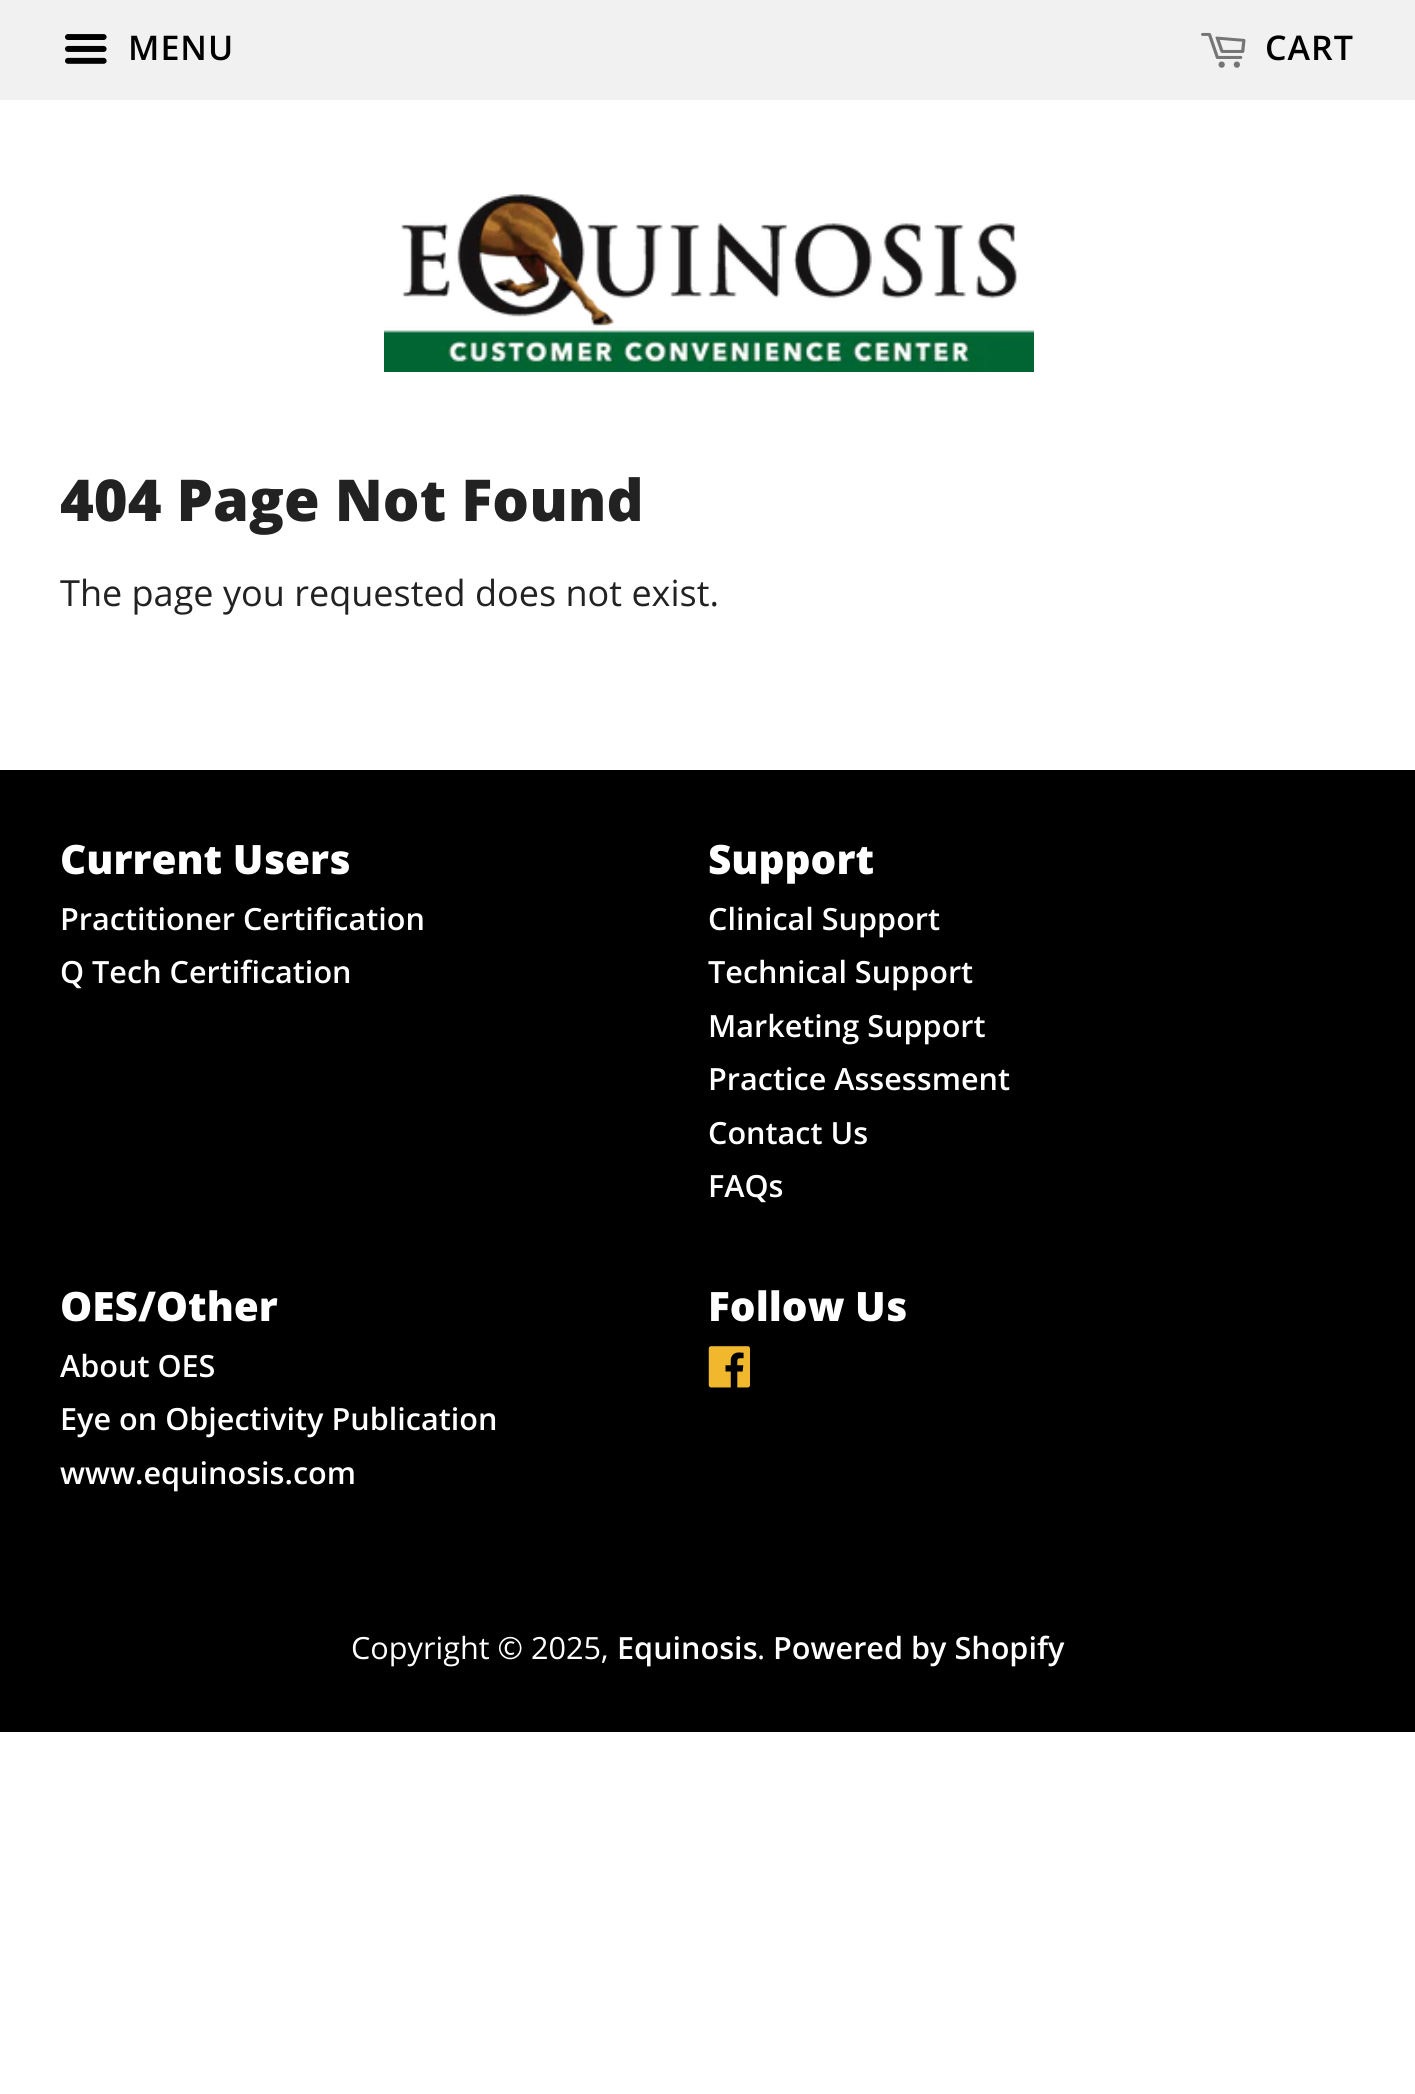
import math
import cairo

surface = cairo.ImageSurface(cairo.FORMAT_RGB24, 1415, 2094)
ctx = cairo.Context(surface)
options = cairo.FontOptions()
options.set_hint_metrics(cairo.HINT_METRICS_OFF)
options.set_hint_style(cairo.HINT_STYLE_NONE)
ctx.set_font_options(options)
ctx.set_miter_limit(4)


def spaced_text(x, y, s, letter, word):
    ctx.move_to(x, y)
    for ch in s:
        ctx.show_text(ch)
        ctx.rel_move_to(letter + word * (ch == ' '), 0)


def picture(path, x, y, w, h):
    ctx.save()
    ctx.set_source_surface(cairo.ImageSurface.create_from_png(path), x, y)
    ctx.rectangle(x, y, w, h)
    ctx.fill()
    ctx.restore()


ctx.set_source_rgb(1, 1, 1)
ctx.paint()
ctx.set_source_rgb(0.945, 0.945, 0.945)
ctx.rectangle(0, 0, 1415, 100)
ctx.fill()
picture("img1.png", 65, 34, 42, 30)
ctx.select_font_face("Open Sans SemiBold")
ctx.set_font_size(34)
ctx.set_source_rgb(0, 0, 0)
spaced_text(128, 60, "MENU", 1, 0)
picture("img2.png", 1201, 32, 45, 36)
spaced_text(1265, 60, "CART", 1, 0)
picture("img3.png", 384, 194, 650, 178)
ctx.select_font_face("Open Sans ExtraBold")
ctx.set_font_size(57.75)
ctx.set_source_rgb(0.133, 0.133, 0.133)
ctx.move_to(60, 521)
ctx.show_text("404 Page Not Found")
ctx.select_font_face("Open Sans")
ctx.set_font_size(36)
ctx.move_to(60, 606)
ctx.show_text("The page you requested does not exist.")
ctx.set_source_rgb(0, 0, 0)
ctx.rectangle(0, 770, 1415, 962)
ctx.fill()
ctx.select_font_face("Open Sans ExtraBold")
ctx.set_font_size(40.5)
ctx.set_source_rgb(1, 1, 1)
ctx.move_to(60, 874)
ctx.show_text("Current Users")
ctx.select_font_face("Open Sans SemiBold")
ctx.set_font_size(30.6)
ctx.move_to(60, 930)
ctx.show_text("Practitioner Certification")
ctx.move_to(60, 983)
ctx.show_text("Q Tech Certification")
ctx.select_font_face("Open Sans ExtraBold")
ctx.set_font_size(40.5)
ctx.move_to(708, 874)
ctx.show_text("Support")
ctx.select_font_face("Open Sans SemiBold")
ctx.set_font_size(30.6)
ctx.move_to(708, 930)
ctx.show_text("Clinical Support")
ctx.move_to(708, 983)
ctx.show_text("Technical Support")
ctx.move_to(708, 1037)
ctx.show_text("Marketing Support")
ctx.move_to(708, 1090)
ctx.show_text("Practice Assessment")
ctx.move_to(708, 1144)
ctx.show_text("Contact Us")
ctx.move_to(708, 1197)
ctx.show_text("FAQs")
ctx.select_font_face("Open Sans ExtraBold")
ctx.set_font_size(40.5)
ctx.move_to(60, 1321)
ctx.show_text("OES/Other")
ctx.select_font_face("Open Sans SemiBold")
ctx.set_font_size(30.6)
ctx.move_to(60, 1377)
ctx.show_text("About OES")
ctx.move_to(60, 1430)
ctx.show_text("Eye on Objectivity Publication")
ctx.move_to(60, 1484)
ctx.show_text("www.equinosis.com")
ctx.select_font_face("Open Sans ExtraBold")
ctx.set_font_size(40.5)
ctx.move_to(708, 1321)
ctx.show_text("Follow Us")
picture("img4.png", 708, 1346, 43, 42)
ctx.select_font_face("Open Sans")
ctx.set_font_size(30.6)
ctx.move_to(351, 1659)
ctx.show_text("Copyright © 2025,")
ctx.select_font_face("Open Sans SemiBold")
ctx.move_to(617, 1659)
ctx.show_text("Equinosis")
ctx.select_font_face("Open Sans")
ctx.move_to(757, 1659)
ctx.show_text(".")
ctx.select_font_face("Open Sans SemiBold")
ctx.move_to(773, 1659)
ctx.show_text("Powered by Shopify")
surface.write_to_png("page.png")
